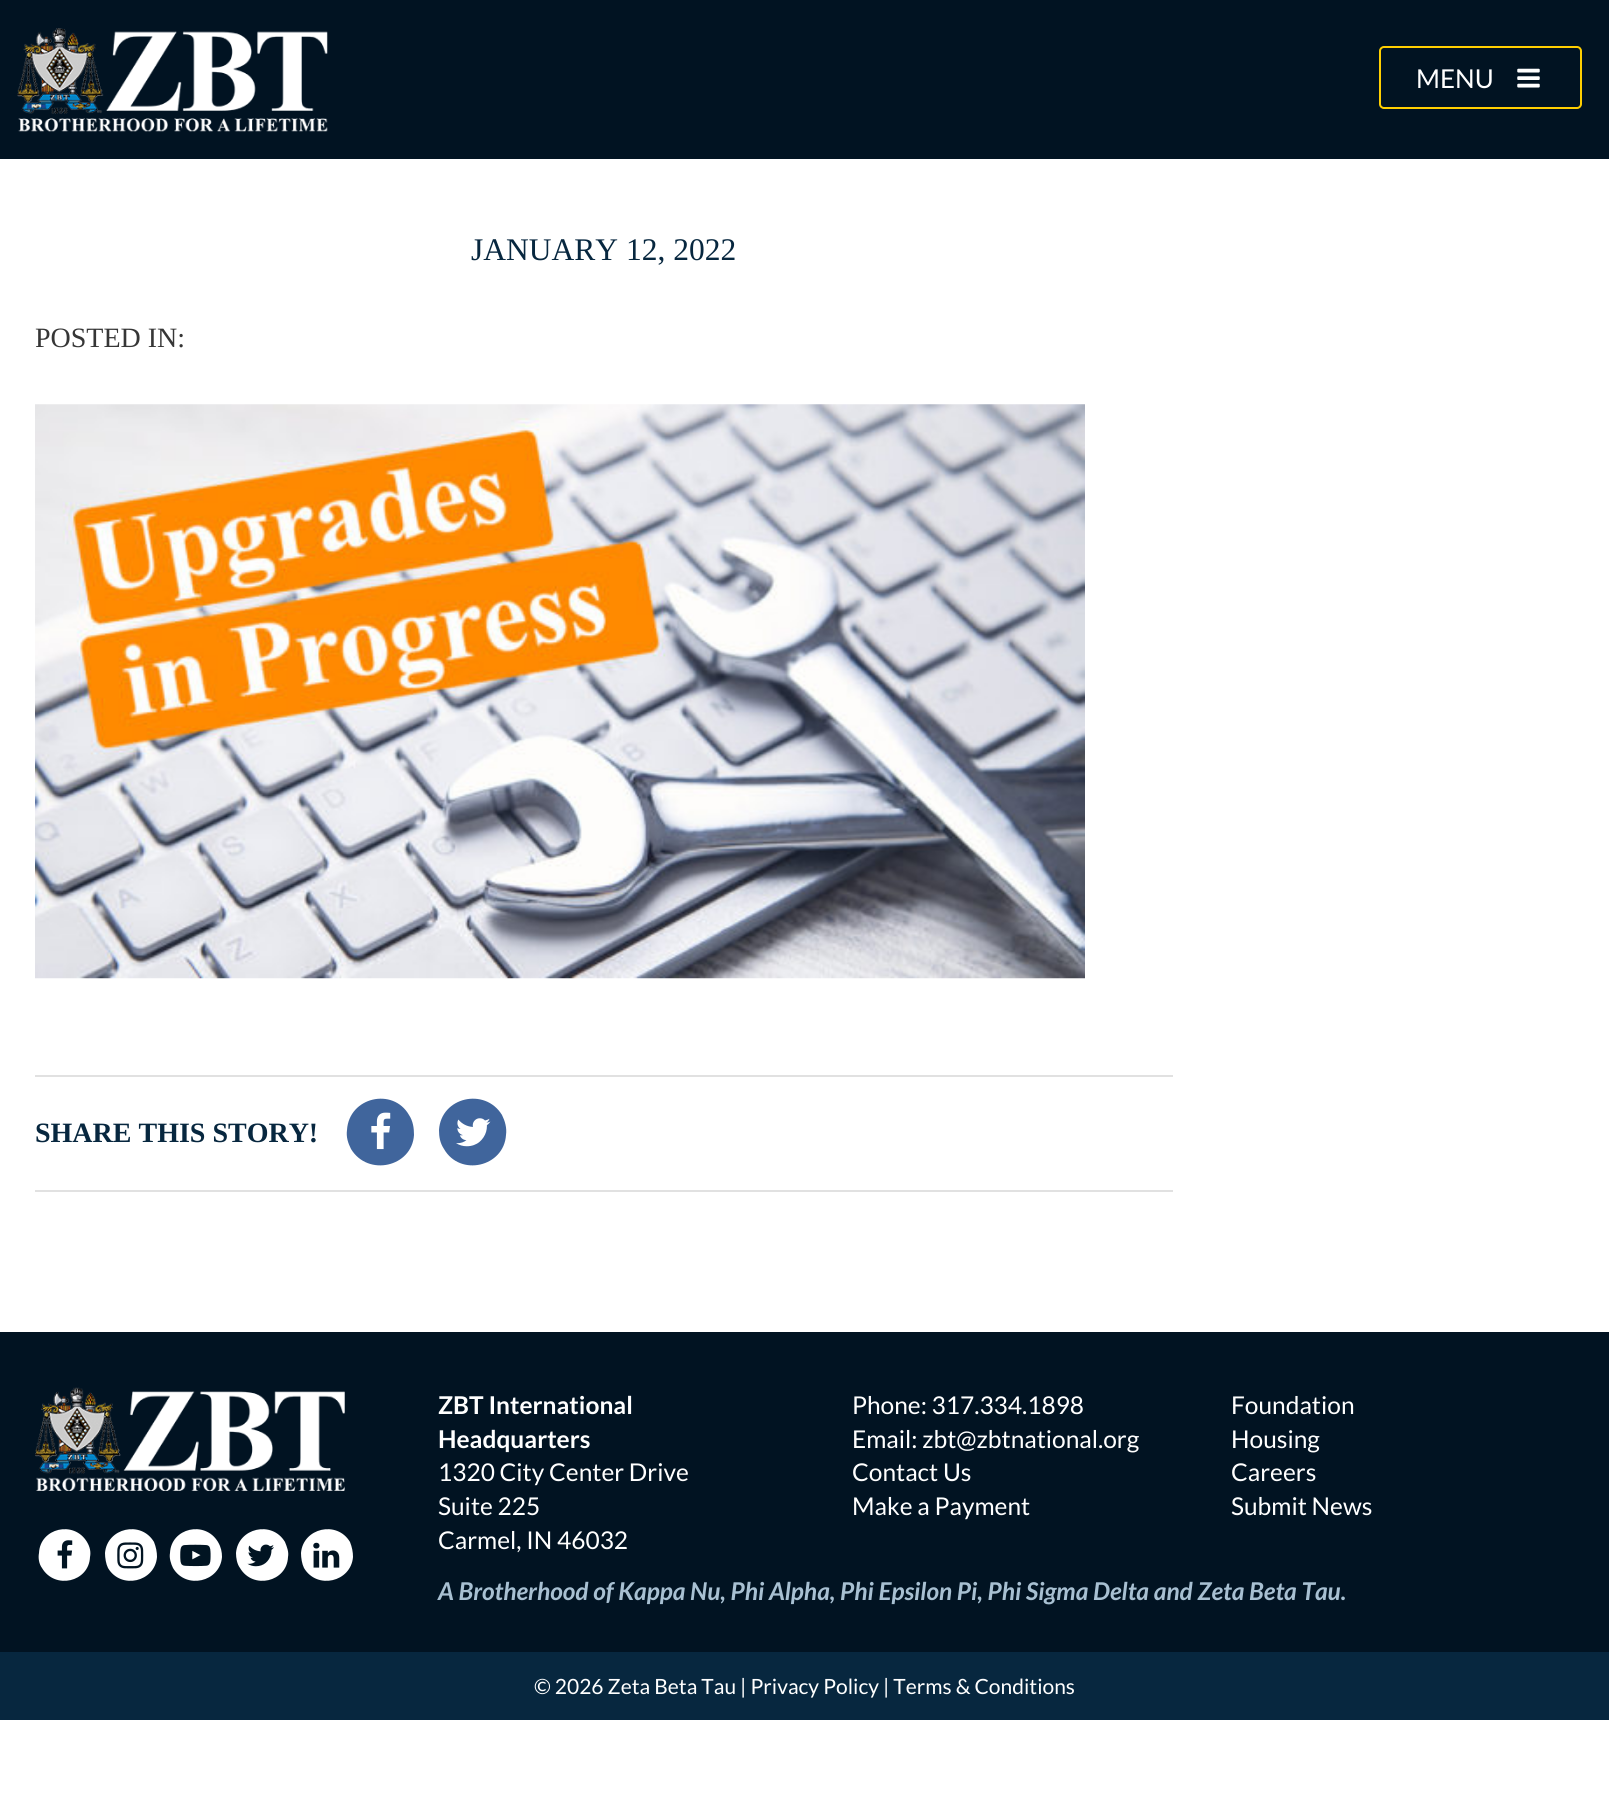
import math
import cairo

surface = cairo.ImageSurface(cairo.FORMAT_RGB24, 1609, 1806)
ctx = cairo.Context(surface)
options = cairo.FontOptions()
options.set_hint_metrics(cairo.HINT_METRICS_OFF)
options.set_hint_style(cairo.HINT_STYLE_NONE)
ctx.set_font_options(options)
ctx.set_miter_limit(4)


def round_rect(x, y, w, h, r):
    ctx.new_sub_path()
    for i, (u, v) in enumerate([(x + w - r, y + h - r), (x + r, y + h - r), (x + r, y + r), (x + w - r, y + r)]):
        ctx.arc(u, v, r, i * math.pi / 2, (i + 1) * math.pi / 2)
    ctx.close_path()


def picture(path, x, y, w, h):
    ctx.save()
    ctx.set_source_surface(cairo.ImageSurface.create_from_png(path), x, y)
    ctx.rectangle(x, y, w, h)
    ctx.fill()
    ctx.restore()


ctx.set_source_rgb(1, 1, 1)
ctx.paint()
ctx.set_source_rgb(0.004, 0.078, 0.133)
ctx.rectangle(0, 0, 1609, 159)
ctx.fill()
round_rect(1380, 47, 201, 61, 4)
ctx.set_source_rgb(1, 0.812, 0.004)
ctx.stroke()
ctx.select_font_face("Lato")
ctx.set_font_size(26)
ctx.set_source_rgb(1, 1, 1)
ctx.move_to(1416, 88)
ctx.show_text("MENU")
picture("img1.png", 1517, 68, 23, 20)
picture("img2.png", 17, 28, 311, 104)
ctx.select_font_face("Liberation Serif")
ctx.set_font_size(31.5)
ctx.set_source_rgb(0.031, 0.153, 0.247)
ctx.move_to(471, 260)
ctx.show_text("JANUARY 12, 2022")
ctx.set_font_size(28)
ctx.set_source_rgb(0.212, 0.212, 0.212)
ctx.move_to(35, 347)
ctx.show_text("POSTED IN:")
picture("img3.png", 35, 404, 1050, 575)
ctx.set_source_rgb(0.882, 0.882, 0.882)
ctx.rectangle(35, 1075, 1138, 2)
ctx.fill()
ctx.rectangle(35, 1190, 1138, 2)
ctx.fill()
ctx.select_font_face("Liberation Serif", cairo.FONT_SLANT_NORMAL, cairo.FONT_WEIGHT_BOLD)
ctx.set_source_rgb(0.031, 0.153, 0.247)
ctx.move_to(35, 1142)
ctx.show_text("SHARE THIS STORY!")
ctx.set_source_rgb(0.251, 0.396, 0.612)
ctx.new_path()
ctx.move_to(409, 1115)
ctx.curve_to(413, 1121, 414, 1128, 414, 1135)
ctx.curve_to(412, 1167, 368, 1177, 351, 1149)
ctx.curve_to(348, 1143, 346, 1137, 347, 1130)
ctx.curve_to(349, 1097, 393, 1087, 409, 1115)
ctx.close_path()
ctx.fill()
picture("img4.png", 371, 1112, 20, 38)
ctx.new_path()
ctx.move_to(502, 1115)
ctx.curve_to(505, 1121, 507, 1128, 506, 1135)
ctx.curve_to(504, 1167, 460, 1177, 444, 1149)
ctx.curve_to(440, 1143, 439, 1137, 439, 1130)
ctx.curve_to(441, 1097, 485, 1087, 502, 1115)
ctx.close_path()
ctx.fill()
picture("img5.png", 456, 1118, 35, 29)
ctx.set_source_rgb(0.004, 0.078, 0.133)
ctx.rectangle(0, 1332, 1609, 320)
ctx.fill()
picture("img6.png", 35, 1387, 310, 104)
ctx.set_source_rgb(1, 1, 1)
ctx.new_path()
ctx.move_to(87, 1542)
ctx.curve_to(90, 1547, 91, 1552, 90, 1557)
ctx.curve_to(89, 1582, 55, 1590, 42, 1568)
ctx.curve_to(39, 1564, 38, 1558, 39, 1553)
ctx.curve_to(40, 1528, 74, 1520, 87, 1542)
ctx.close_path()
ctx.fill()
picture("img7.png", 57, 1540, 16, 29)
ctx.new_path()
ctx.move_to(154, 1542)
ctx.curve_to(156, 1547, 157, 1552, 157, 1557)
ctx.curve_to(155, 1582, 121, 1590, 108, 1568)
ctx.curve_to(106, 1564, 105, 1558, 105, 1553)
ctx.curve_to(107, 1528, 141, 1520, 154, 1542)
ctx.close_path()
ctx.fill()
picture("img8.png", 117, 1542, 27, 27)
ctx.new_path()
ctx.move_to(218, 1542)
ctx.curve_to(221, 1547, 222, 1552, 222, 1557)
ctx.curve_to(220, 1582, 186, 1590, 173, 1568)
ctx.curve_to(171, 1564, 169, 1558, 170, 1553)
ctx.curve_to(171, 1528, 205, 1520, 218, 1542)
ctx.close_path()
ctx.fill()
picture("img9.png", 180, 1544, 31, 23)
ctx.new_path()
ctx.move_to(285, 1542)
ctx.curve_to(287, 1547, 289, 1552, 288, 1557)
ctx.curve_to(287, 1582, 253, 1590, 240, 1568)
ctx.curve_to(237, 1564, 236, 1558, 236, 1553)
ctx.curve_to(238, 1528, 272, 1520, 285, 1542)
ctx.close_path()
ctx.fill()
picture("img10.png", 247, 1544, 27, 23)
ctx.new_path()
ctx.move_to(350, 1542)
ctx.curve_to(352, 1547, 353, 1552, 353, 1557)
ctx.curve_to(351, 1582, 317, 1590, 304, 1568)
ctx.curve_to(302, 1564, 301, 1558, 301, 1553)
ctx.curve_to(303, 1528, 337, 1520, 350, 1542)
ctx.close_path()
ctx.fill()
picture("img11.png", 313, 1542, 27, 26)
ctx.select_font_face("Lato", cairo.FONT_SLANT_NORMAL, cairo.FONT_WEIGHT_BOLD)
ctx.set_font_size(24.5)
ctx.move_to(438, 1414)
ctx.show_text("ZBT International")
ctx.move_to(438, 1448)
ctx.show_text("Headquarters")
ctx.select_font_face("Lato")
ctx.move_to(438, 1481)
ctx.show_text("1320 City Center Drive")
ctx.move_to(438, 1515)
ctx.show_text("Suite 225")
ctx.move_to(438, 1549)
ctx.show_text("Carmel, IN 46032")
ctx.move_to(852, 1414)
ctx.show_text("Phone: 317.334.1898")
ctx.move_to(852, 1448)
ctx.show_text("Email: zbt@zbtnational.org")
ctx.move_to(852, 1481)
ctx.show_text("Contact Us")
ctx.move_to(852, 1515)
ctx.show_text("Make a Payment")
ctx.move_to(1231, 1414)
ctx.show_text("Foundation")
ctx.move_to(1231, 1448)
ctx.show_text("Housing")
ctx.move_to(1231, 1481)
ctx.show_text("Careers")
ctx.move_to(1231, 1515)
ctx.show_text("Submit News")
ctx.select_font_face("Lato", cairo.FONT_SLANT_ITALIC, cairo.FONT_WEIGHT_BOLD)
ctx.set_source_rgb(0.659, 0.753, 0.824)
ctx.move_to(438, 1600)
ctx.show_text("A Brotherhood of Kappa Nu, Phi Alpha, Phi Epsilon Pi, Phi Sigma Delta and Zeta Beta Tau.")
ctx.set_source_rgb(0.031, 0.153, 0.247)
ctx.rectangle(0, 1652, 1609, 68)
ctx.fill()
ctx.select_font_face("Lato")
ctx.set_font_size(21)
ctx.set_source_rgb(1, 1, 1)
ctx.move_to(534, 1694)
ctx.show_text("© 2026 Zeta Beta Tau | Privacy Policy | Terms & Conditions")
surface.write_to_png("page.png")
